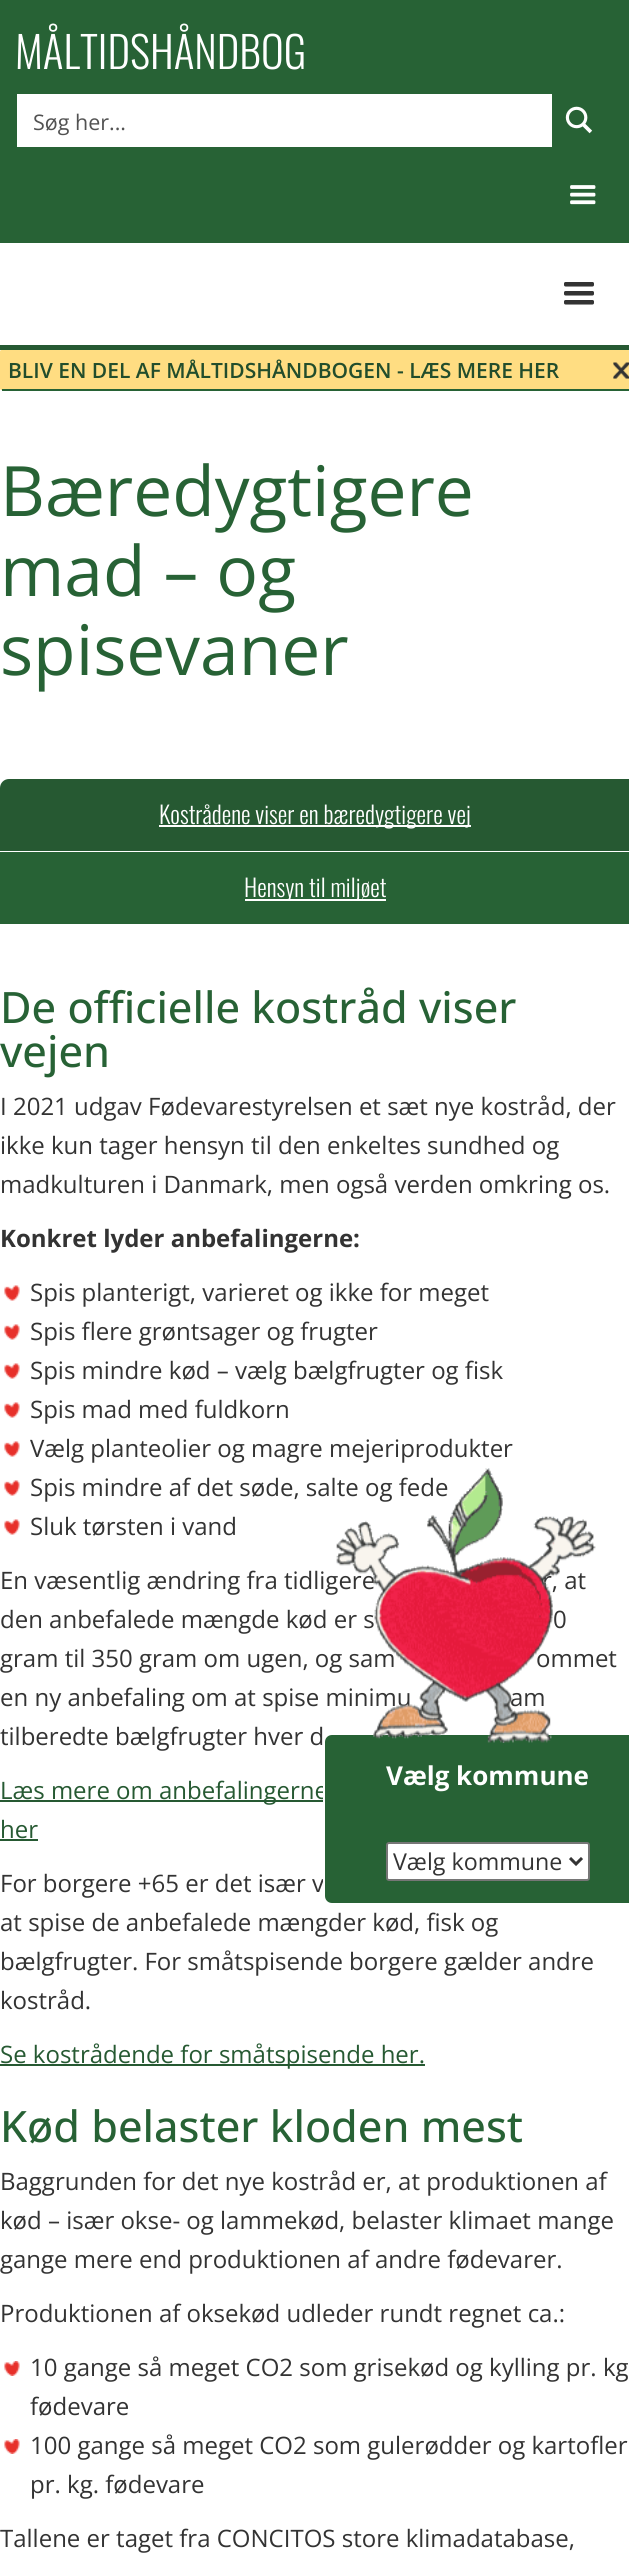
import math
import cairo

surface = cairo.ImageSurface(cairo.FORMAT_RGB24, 629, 2569)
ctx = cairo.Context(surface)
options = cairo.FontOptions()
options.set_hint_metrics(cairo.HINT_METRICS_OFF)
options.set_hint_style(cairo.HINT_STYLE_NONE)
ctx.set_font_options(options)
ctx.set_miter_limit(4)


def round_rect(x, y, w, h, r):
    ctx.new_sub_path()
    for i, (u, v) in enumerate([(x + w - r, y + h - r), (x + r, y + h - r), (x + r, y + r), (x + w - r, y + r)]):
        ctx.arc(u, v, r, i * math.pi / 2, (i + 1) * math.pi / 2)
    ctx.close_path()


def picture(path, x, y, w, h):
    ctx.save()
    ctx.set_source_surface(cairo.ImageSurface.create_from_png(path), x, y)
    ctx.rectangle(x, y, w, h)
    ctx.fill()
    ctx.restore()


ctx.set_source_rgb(1, 1, 1)
ctx.paint()
ctx.set_source_rgb(0.153, 0.384, 0.208)
ctx.rectangle(0, 0, 629, 243)
ctx.fill()
ctx.select_font_face("Oswald Light")
ctx.set_font_size(43.25)
ctx.set_source_rgb(1, 1, 1)
ctx.move_to(15, 69)
ctx.show_text("MÅLTIDSHÅNDBOG")
ctx.rectangle(17, 94, 535, 53)
ctx.fill()
ctx.select_font_face("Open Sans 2")
ctx.set_font_size(21.5)
ctx.set_source_rgb(0.322, 0.322, 0.322)
ctx.move_to(33, 130)
ctx.show_text("Søg her...")
picture("img1.png", 565, 106, 28, 28)
picture("img2.png", 570, 185, 26, 20)
ctx.set_source_rgb(0.149, 0.349, 0.196)
ctx.rectangle(0, 345, 629, 5)
ctx.fill()
picture("img3.png", 564, 282, 30, 23)
ctx.set_source_rgb(1, 0.867, 0.51)
round_rect(0, 350, 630, 40, 1.5)
ctx.fill()
ctx.set_source_rgb(0.153, 0.384, 0.208)
ctx.rectangle(2, 389, 627, 2)
ctx.fill()
ctx.select_font_face("Open Sans SemiBold")
ctx.set_font_size(21)
ctx.set_source_rgb(0.133, 0.302, 0.173)
ctx.move_to(8, 378)
ctx.show_text("BLIV EN DEL AF MÅLTIDSHÅNDBOGEN - LÆS MERE HER")
picture("img4.png", 613, 362, 16, 17)
ctx.select_font_face("Open Sans")
ctx.set_font_size(69.5)
ctx.set_source_rgb(0.153, 0.384, 0.208)
ctx.move_to(0, 516)
ctx.show_text("Bæredygtigere")
ctx.move_to(0, 596)
ctx.show_text("mad – og")
ctx.move_to(0, 675)
ctx.show_text("spisevaner")
ctx.set_source_rgb(0.149, 0.349, 0.196)
ctx.new_path()
ctx.move_to(9, 779)
ctx.line_to(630, 779)
ctx.line_to(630, 851)
ctx.line_to(0, 851)
ctx.line_to(0, 788)
ctx.curve_to(0, 783, 4, 779, 9, 779)
ctx.close_path()
ctx.fill()
ctx.set_source_rgb(1, 1, 1)
ctx.rectangle(159, 825, 312, 2)
ctx.fill()
ctx.select_font_face("Oswald Light")
ctx.set_font_size(24)
ctx.move_to(159, 824)
ctx.show_text("Kostrådene viser en bæredygtigere vej")
ctx.set_source_rgb(0.153, 0.384, 0.208)
ctx.rectangle(0, 852, 629, 72)
ctx.fill()
ctx.set_source_rgb(1, 1, 1)
ctx.rectangle(245, 899, 141, 2)
ctx.fill()
ctx.move_to(244, 897)
ctx.show_text("Hensyn til miljøet")
ctx.select_font_face("Open Sans Medium")
ctx.set_font_size(43.25)
ctx.set_source_rgb(0.153, 0.384, 0.208)
ctx.move_to(0, 1023)
ctx.show_text("De officielle kostråd viser")
ctx.move_to(0, 1067)
ctx.show_text("vejen")
ctx.select_font_face("Open Sans")
ctx.set_font_size(24)
ctx.set_source_rgb(0.2, 0.2, 0.2)
ctx.move_to(0, 1115)
ctx.show_text("I 2021 udgav Fødevarestyrelsen et sæt nye kostråd, der")
ctx.move_to(0, 1154)
ctx.show_text("ikke kun tager hensyn til den enkeltes sundhed og")
ctx.move_to(0, 1193)
ctx.show_text("madkulturen i Danmark, men også verden omkring os.")
ctx.select_font_face("Open Sans", cairo.FONT_SLANT_NORMAL, cairo.FONT_WEIGHT_BOLD)
ctx.move_to(0, 1247)
ctx.show_text("Konkret lyder anbefalingerne:")
picture("img5.png", 4, 1285, 16, 16)
ctx.select_font_face("Open Sans")
ctx.move_to(30, 1301)
ctx.show_text("Spis planterigt, varieret og ikke for meget")
picture("img5.png", 4, 1324, 16, 16)
ctx.move_to(30, 1340)
ctx.show_text("Spis flere grøntsager og frugter")
picture("img5.png", 4, 1363, 16, 16)
ctx.move_to(30, 1379)
ctx.show_text("Spis mindre kød – vælg bælgfrugter og fisk")
picture("img5.png", 4, 1402, 16, 16)
ctx.move_to(30, 1418)
ctx.show_text("Spis mad med fuldkorn")
picture("img5.png", 4, 1441, 16, 16)
ctx.move_to(30, 1457)
ctx.show_text("Vælg planteolier og magre mejeriprodukter")
picture("img5.png", 4, 1480, 16, 16)
ctx.move_to(30, 1496)
ctx.show_text("Spis mindre af det søde, salte og fede")
picture("img5.png", 4, 1519, 16, 16)
ctx.move_to(30, 1535)
ctx.show_text("Sluk tørsten i vand")
ctx.move_to(0, 1589)
ctx.show_text("En væsentlig ændring fra tidligere")
ctx.move_to(542, 1589)
ctx.show_text("r, at")
ctx.move_to(0, 1628)
ctx.show_text("den anbefalede mængde kød er s")
ctx.move_to(553, 1628)
ctx.show_text("0")
ctx.move_to(0, 1667)
ctx.show_text("gram til 350 gram om ugen, og sam")
ctx.move_to(536, 1667)
ctx.show_text("ommet")
ctx.move_to(0, 1706)
ctx.show_text("en ny anbefaling om at spise minimu")
ctx.move_to(510, 1706)
ctx.show_text("am")
ctx.move_to(0, 1745)
ctx.show_text("tilberedte bælgfrugter hver d")
ctx.set_source_rgb(0.149, 0.349, 0.196)
ctx.rectangle(0, 1800, 323, 2)
ctx.fill()
ctx.move_to(0, 1799)
ctx.show_text("Læs mere om anbefalingerne")
ctx.move_to(0, 1838)
ctx.show_text("her")
ctx.rectangle(0, 1839, 38, 2)
ctx.fill()
ctx.set_source_rgb(0.2, 0.2, 0.2)
ctx.move_to(0, 1892)
ctx.show_text("For borgere +65 er det især v")
ctx.move_to(0, 1931)
ctx.show_text("at spise de anbefalede mængder kød, fisk og")
ctx.move_to(0, 1970)
ctx.show_text("bælgfrugter. For småtspisende borgere gælder andre")
ctx.move_to(0, 2009)
ctx.show_text("kostråd.")
ctx.set_source_rgb(0.149, 0.349, 0.196)
ctx.rectangle(0, 2064, 425, 2)
ctx.fill()
ctx.move_to(0, 2063)
ctx.show_text("Se kostrådende for småtspisende her.")
ctx.select_font_face("Open Sans Medium")
ctx.set_font_size(43.25)
ctx.set_source_rgb(0.153, 0.384, 0.208)
ctx.move_to(0, 2142)
ctx.show_text("Kød belaster kloden mest")
ctx.select_font_face("Open Sans")
ctx.set_font_size(24)
ctx.set_source_rgb(0.2, 0.2, 0.2)
ctx.move_to(0, 2190)
ctx.show_text("Baggrunden for det nye kostråd er, at produktionen af")
ctx.move_to(0, 2229)
ctx.show_text("kød – især okse- og lammekød, belaster klimaet mange")
ctx.move_to(0, 2268)
ctx.show_text("gange mere end produktionen af andre fødevarer.")
ctx.move_to(0, 2322)
ctx.show_text("Produktionen af oksekød udleder rundt regnet ca.:")
picture("img6.png", 4, 2361, 16, 15)
ctx.move_to(30, 2376)
ctx.show_text("10 gange så meget CO2 som grisekød og kylling pr. kg")
ctx.move_to(30, 2415)
ctx.show_text("fødevare")
picture("img6.png", 4, 2439, 16, 15)
ctx.move_to(30, 2454)
ctx.show_text("100 gange så meget CO2 som gulerødder og kartofler")
ctx.move_to(30, 2493)
ctx.show_text("pr. kg. fødevare")
ctx.move_to(0, 2547)
ctx.show_text("Tallene er taget fra CONCITOS store klimadatabase,")
ctx.set_source_rgb(0.153, 0.384, 0.208)
ctx.new_path()
ctx.move_to(332, 1734)
ctx.line_to(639, 1734)
ctx.line_to(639, 1904)
ctx.line_to(332, 1904)
ctx.curve_to(327.5, 1904, 324, 1900.5, 324, 1896)
ctx.line_to(324, 1742)
ctx.curve_to(324, 1737.5, 327.5, 1734, 332, 1734)
ctx.close_path()
ctx.fill_preserve()
ctx.set_source_rgb(1, 1, 1)
ctx.stroke()
picture("img7.png", 336, 1468, 260, 275)
ctx.select_font_face("Open Sans", cairo.FONT_SLANT_NORMAL, cairo.FONT_WEIGHT_BOLD)
ctx.set_font_size(26)
ctx.move_to(386, 1785)
ctx.show_text("Vælg kommune")
round_rect(387, 1843, 202, 37, 2)
ctx.fill_preserve()
ctx.set_source_rgb(0.463, 0.463, 0.463)
ctx.stroke()
ctx.new_path()
ctx.move_to(570, 1858)
ctx.line_to(576, 1864)
ctx.line_to(582, 1858)
ctx.set_source_rgb(0.2, 0.2, 0.2)
ctx.set_line_width(3)
ctx.stroke()
ctx.select_font_face("Open Sans")
ctx.set_font_size(23.25)
ctx.move_to(393, 1870)
ctx.show_text("Vælg kommune")
surface.write_to_png("page.png")
